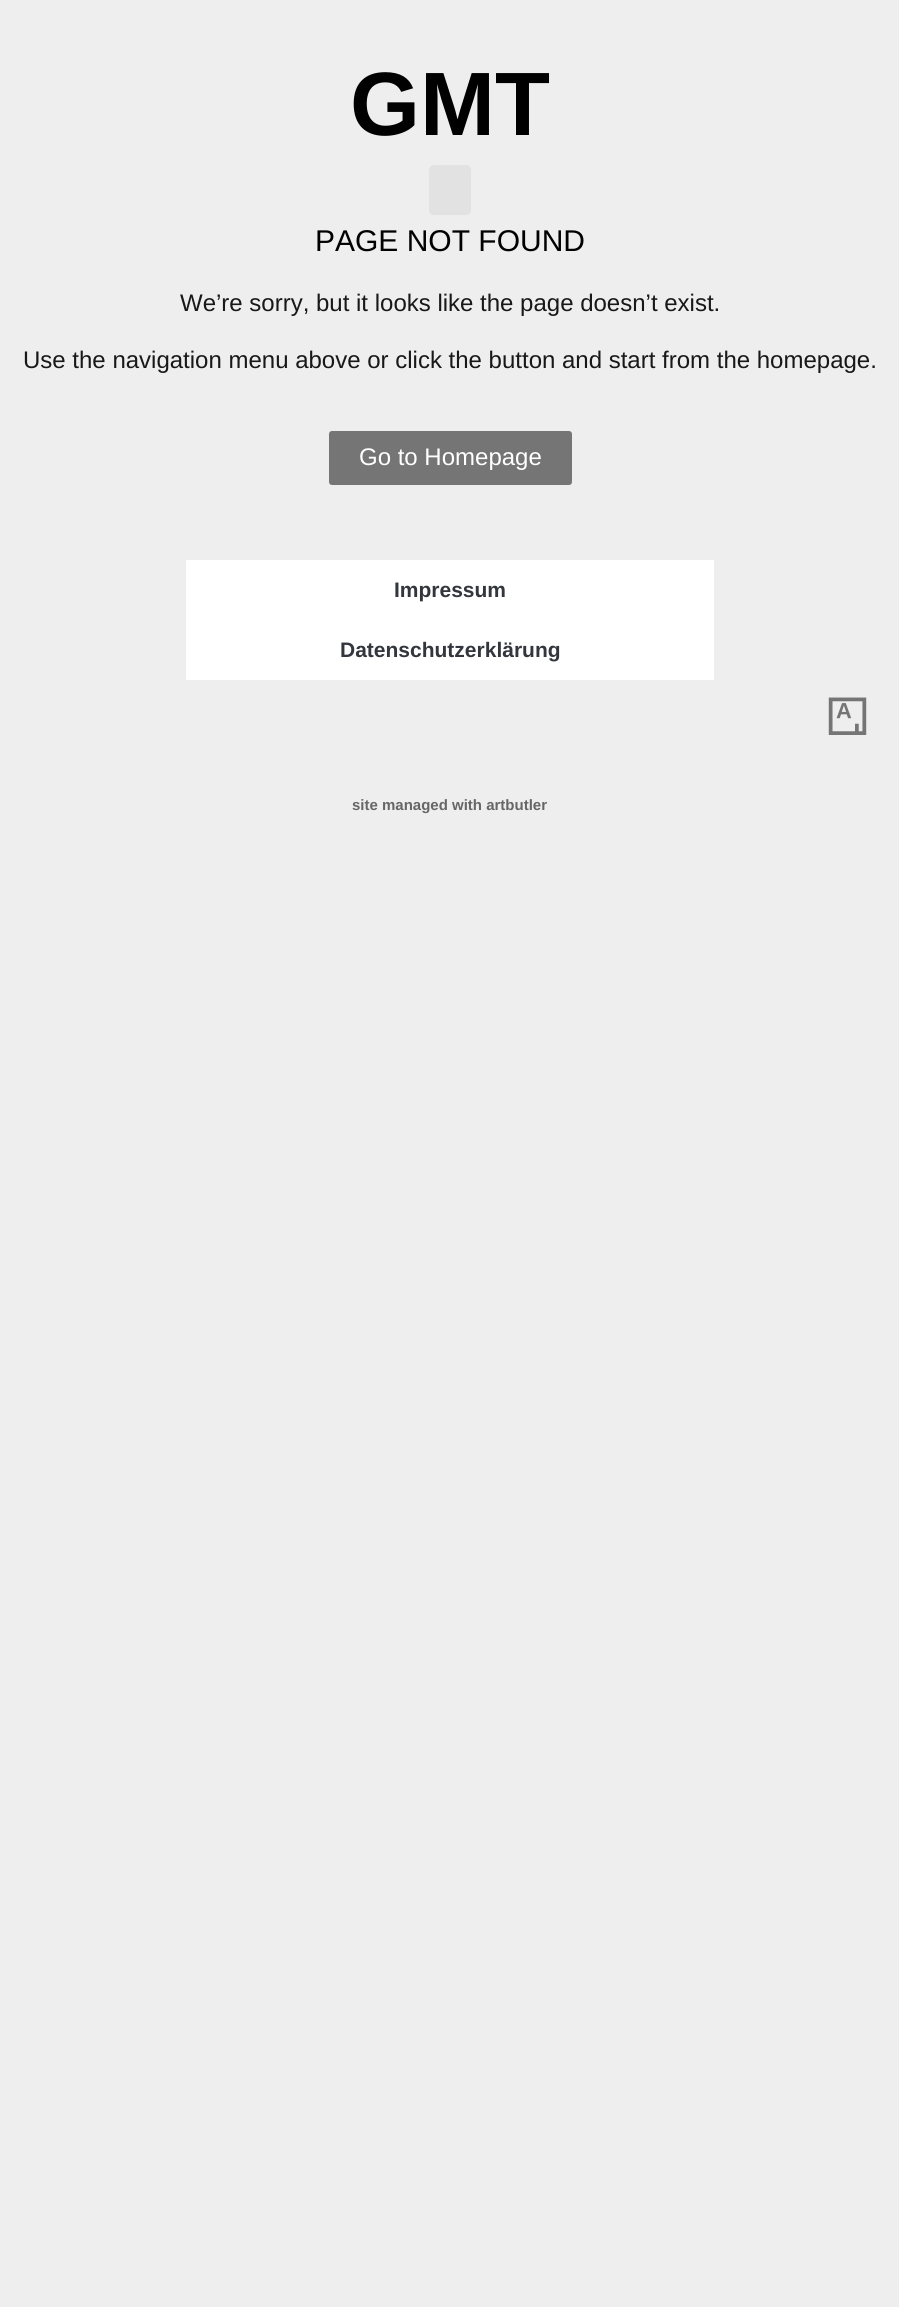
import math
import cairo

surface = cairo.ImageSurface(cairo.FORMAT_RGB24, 899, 2307)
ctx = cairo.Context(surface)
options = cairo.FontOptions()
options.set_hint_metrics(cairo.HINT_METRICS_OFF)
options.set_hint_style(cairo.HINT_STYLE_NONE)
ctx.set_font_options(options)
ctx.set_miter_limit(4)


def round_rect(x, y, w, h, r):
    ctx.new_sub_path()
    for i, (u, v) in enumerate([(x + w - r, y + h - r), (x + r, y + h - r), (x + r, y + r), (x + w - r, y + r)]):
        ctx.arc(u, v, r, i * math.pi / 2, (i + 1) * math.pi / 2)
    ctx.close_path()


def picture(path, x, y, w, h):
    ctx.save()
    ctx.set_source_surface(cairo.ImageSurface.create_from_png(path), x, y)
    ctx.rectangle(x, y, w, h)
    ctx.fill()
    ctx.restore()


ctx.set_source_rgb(0.933, 0.933, 0.933)
ctx.paint()
ctx.select_font_face("Liberation Sans", cairo.FONT_SLANT_NORMAL, cairo.FONT_WEIGHT_BOLD)
ctx.set_font_size(90)
ctx.set_source_rgb(0, 0, 0)
ctx.move_to(350, 135)
ctx.show_text("GMT")
ctx.set_source_rgb(0.886, 0.886, 0.886)
round_rect(429, 165, 42, 50, 5)
ctx.fill()
ctx.select_font_face("Liberation Sans")
ctx.set_font_size(30)
ctx.set_source_rgb(0, 0, 0)
ctx.move_to(315, 251)
ctx.show_text("PAGE NOT FOUND")
ctx.set_font_size(24)
ctx.set_source_rgb(0.094, 0.094, 0.094)
ctx.move_to(180, 311)
ctx.show_text("We’re sorry, but it looks like the page doesn’t exist.")
ctx.move_to(23, 368)
ctx.show_text("Use the navigation menu above or click the button and start from the homepage.")
ctx.set_source_rgb(0.459, 0.459, 0.459)
round_rect(329, 431, 243, 54, 3)
ctx.fill()
ctx.set_source_rgb(1, 1, 1)
ctx.move_to(359, 465)
ctx.show_text("Go to Homepage")
ctx.rectangle(186, 560, 528, 120)
ctx.fill()
ctx.select_font_face("Liberation Sans", cairo.FONT_SLANT_NORMAL, cairo.FONT_WEIGHT_BOLD)
ctx.set_font_size(21)
ctx.set_source_rgb(0.2, 0.216, 0.239)
ctx.move_to(394, 597)
ctx.show_text("Impressum")
ctx.move_to(340, 657)
ctx.show_text("Datenschutzerklärung")
picture("img1.png", 828, 697, 39, 38)
ctx.set_font_size(15)
ctx.set_source_rgb(0.4, 0.4, 0.4)
ctx.move_to(352, 810)
ctx.show_text("site managed with artbutler")
surface.write_to_png("page.png")
